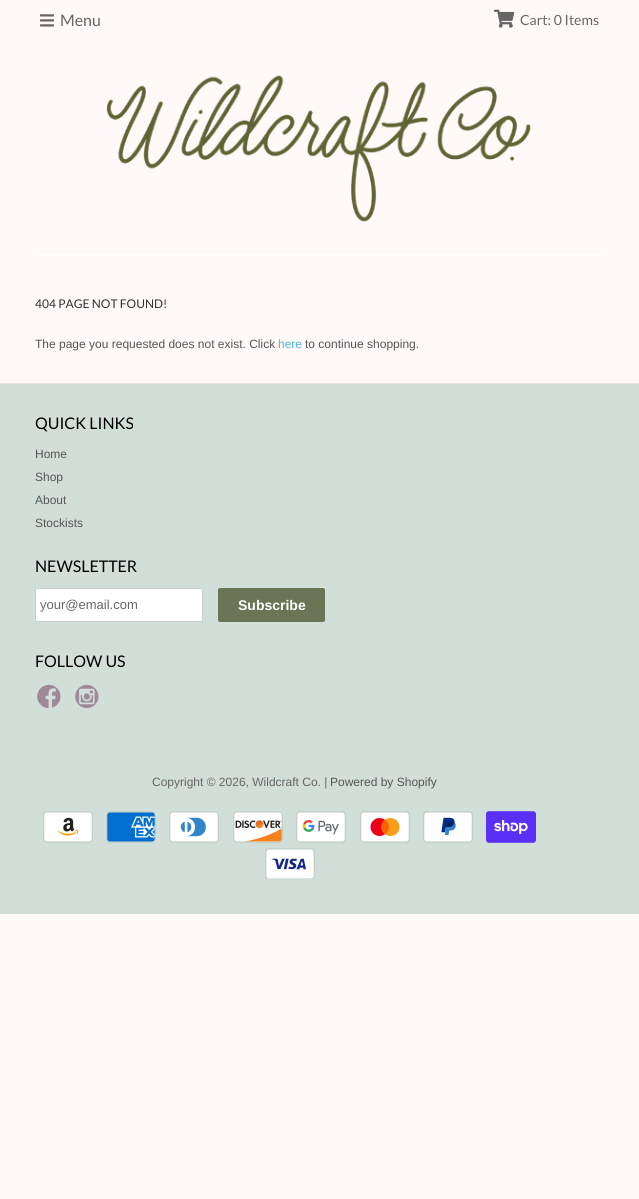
import math
import cairo

surface = cairo.ImageSurface(cairo.FORMAT_RGB24, 639, 1199)
ctx = cairo.Context(surface)
options = cairo.FontOptions()
options.set_hint_metrics(cairo.HINT_METRICS_OFF)
options.set_hint_style(cairo.HINT_STYLE_NONE)
ctx.set_font_options(options)
ctx.set_miter_limit(4)


def round_rect(x, y, w, h, r):
    ctx.new_sub_path()
    for i, (u, v) in enumerate([(x + w - r, y + h - r), (x + r, y + h - r), (x + r, y + r), (x + w - r, y + r)]):
        ctx.arc(u, v, r, i * math.pi / 2, (i + 1) * math.pi / 2)
    ctx.close_path()


def picture(path, x, y, w, h):
    ctx.save()
    ctx.set_source_surface(cairo.ImageSurface.create_from_png(path), x, y)
    ctx.rectangle(x, y, w, h)
    ctx.fill()
    ctx.restore()


ctx.set_source_rgb(1, 0.98, 0.969)
ctx.paint()
picture("img1.png", 40, 14, 14, 13)
ctx.select_font_face("Lato")
ctx.set_font_size(16)
ctx.set_source_rgb(0.4, 0.4, 0.4)
ctx.move_to(60, 26)
ctx.show_text("Menu")
picture("img2.png", 494, 9, 21, 19)
ctx.set_font_size(14)
ctx.move_to(520, 25)
ctx.show_text("Cart: 0 Items")
ctx.set_source_rgb(1, 1, 1)
ctx.rectangle(35, 255, 570, 1)
ctx.fill()
picture("img3.png", 106, 75, 425, 147)
ctx.set_font_size(12)
ctx.set_source_rgb(0.2, 0.2, 0.2)
ctx.move_to(35, 308)
ctx.show_text("404 PAGE NOT FOUND!")
ctx.select_font_face("Liberation Sans")
ctx.set_source_rgb(0.333, 0.333, 0.333)
ctx.move_to(35, 348)
ctx.show_text("The page you requested does not exist. Click")
ctx.set_source_rgb(0.314, 0.702, 0.855)
ctx.move_to(278, 348)
ctx.show_text("here")
ctx.set_source_rgb(0.333, 0.333, 0.333)
ctx.move_to(305, 348)
ctx.show_text("to continue shopping.")
ctx.set_source_rgb(0.824, 0.871, 0.847)
ctx.rectangle(0, 384, 639, 530)
ctx.fill()
ctx.set_source_rgb(0.898, 0.898, 0.898)
ctx.rectangle(0, 383, 639, 1)
ctx.fill()
ctx.select_font_face("Lato")
ctx.set_font_size(16)
ctx.set_source_rgb(0, 0, 0)
ctx.move_to(35, 429)
ctx.show_text("QUICK LINKS")
ctx.select_font_face("Liberation Sans")
ctx.set_font_size(12)
ctx.set_source_rgb(0.333, 0.333, 0.333)
ctx.move_to(35, 458)
ctx.show_text("Home")
ctx.move_to(35, 481)
ctx.show_text("Shop")
ctx.move_to(35, 504)
ctx.show_text("About")
ctx.move_to(35, 527)
ctx.show_text("Stockists")
ctx.select_font_face("Lato")
ctx.set_font_size(16)
ctx.set_source_rgb(0, 0, 0)
ctx.move_to(35, 572)
ctx.show_text("NEWSLETTER")
ctx.set_source_rgb(1, 1, 1)
round_rect(35.5, 588.5, 167, 33, 1.5)
ctx.fill_preserve()
ctx.set_source_rgb(0.8, 0.8, 0.8)
ctx.set_line_width(1)
ctx.stroke()
ctx.select_font_face("Liberation Sans")
ctx.set_font_size(13)
ctx.set_source_rgb(0.4, 0.4, 0.4)
ctx.move_to(40, 609)
ctx.show_text("your@email.com")
ctx.set_source_rgb(0.42, 0.455, 0.333)
round_rect(218, 588, 107, 34, 2)
ctx.fill()
ctx.select_font_face("Liberation Sans", cairo.FONT_SLANT_NORMAL, cairo.FONT_WEIGHT_BOLD)
ctx.set_font_size(14)
ctx.set_source_rgb(1, 1, 1)
ctx.move_to(238, 610)
ctx.show_text("Subscribe")
ctx.select_font_face("Lato")
ctx.set_font_size(16)
ctx.set_source_rgb(0, 0, 0)
ctx.move_to(35, 667)
ctx.show_text("FOLLOW US")
picture("img4.png", 37, 684, 24, 25)
picture("img5.png", 75, 684, 24, 25)
ctx.select_font_face("Liberation Sans")
ctx.set_font_size(12)
ctx.set_source_rgb(0.4, 0.4, 0.4)
ctx.move_to(152, 786)
ctx.show_text("Copyright © 2026, Wildcraft Co. |")
ctx.set_source_rgb(0.333, 0.333, 0.333)
ctx.move_to(330, 786)
ctx.show_text("Powered by Shopify")
picture("img6.png", 43, 811, 50, 32)
picture("img7.png", 106, 811, 50, 32)
picture("img8.png", 169, 811, 50, 32)
picture("img9.png", 233, 811, 50, 32)
picture("img10.png", 296, 811, 50, 32)
picture("img11.png", 360, 811, 50, 32)
picture("img12.png", 423, 811, 50, 32)
picture("img13.png", 486, 811, 50, 32)
picture("img14.png", 265, 848, 50, 31)
surface.write_to_png("page.png")
